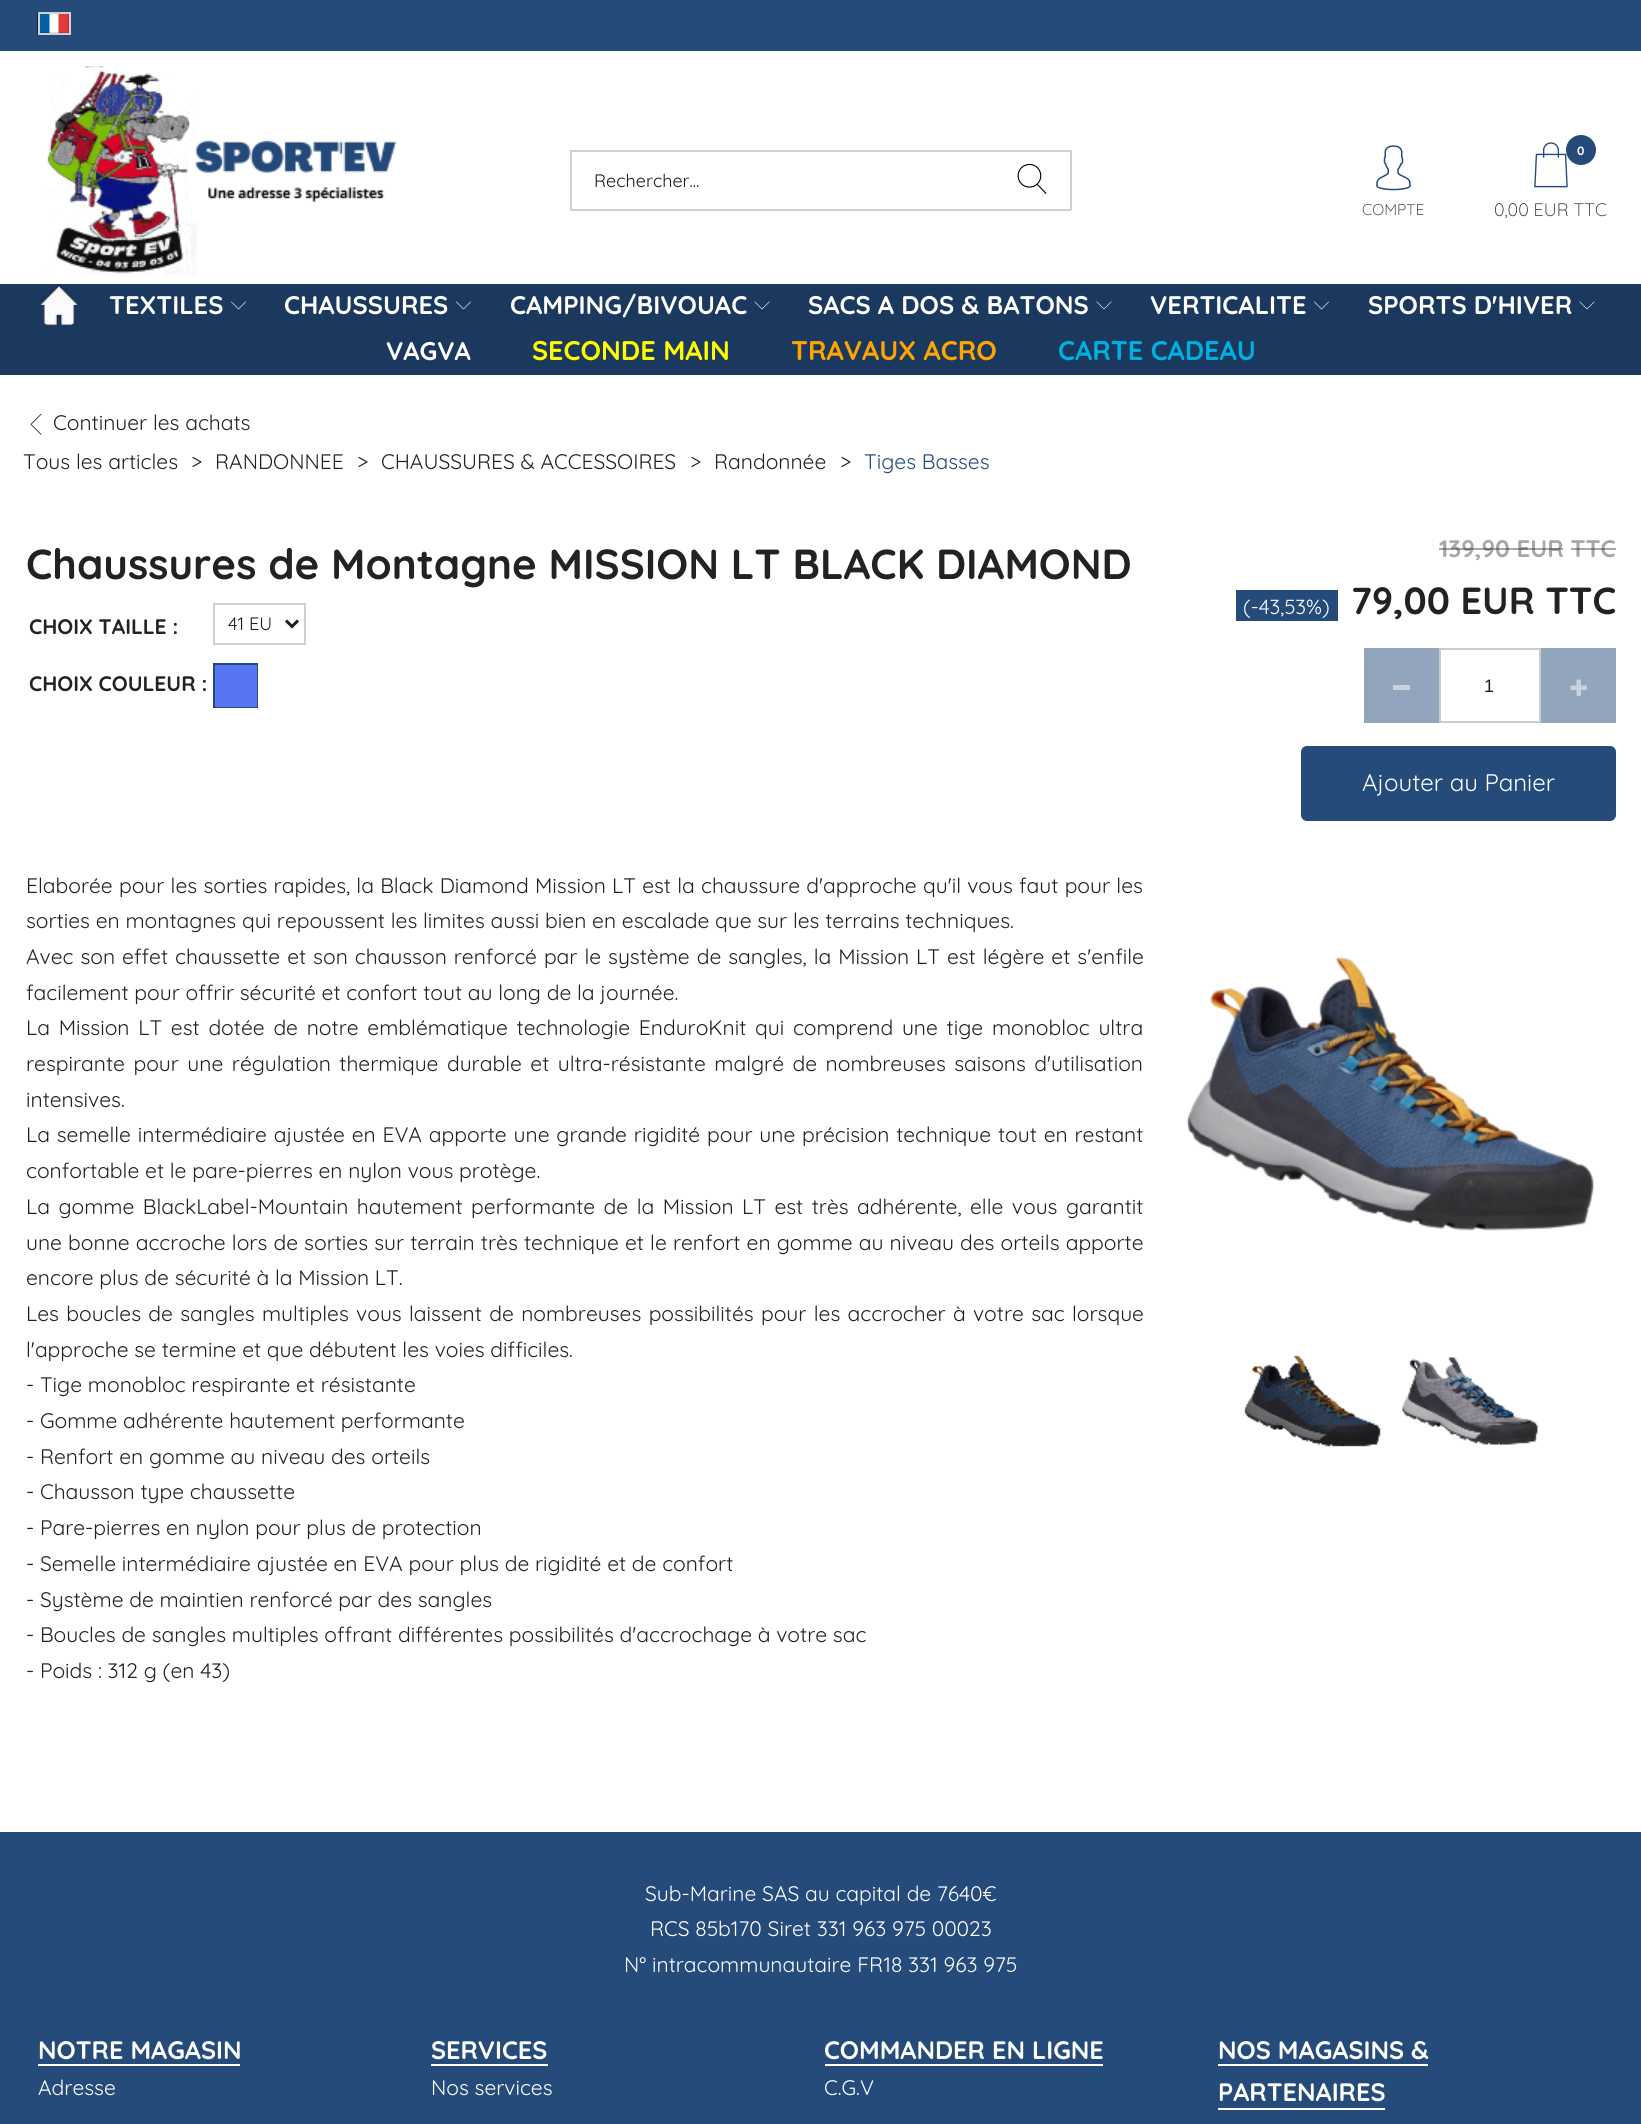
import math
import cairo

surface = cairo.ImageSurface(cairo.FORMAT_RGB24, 1641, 2124)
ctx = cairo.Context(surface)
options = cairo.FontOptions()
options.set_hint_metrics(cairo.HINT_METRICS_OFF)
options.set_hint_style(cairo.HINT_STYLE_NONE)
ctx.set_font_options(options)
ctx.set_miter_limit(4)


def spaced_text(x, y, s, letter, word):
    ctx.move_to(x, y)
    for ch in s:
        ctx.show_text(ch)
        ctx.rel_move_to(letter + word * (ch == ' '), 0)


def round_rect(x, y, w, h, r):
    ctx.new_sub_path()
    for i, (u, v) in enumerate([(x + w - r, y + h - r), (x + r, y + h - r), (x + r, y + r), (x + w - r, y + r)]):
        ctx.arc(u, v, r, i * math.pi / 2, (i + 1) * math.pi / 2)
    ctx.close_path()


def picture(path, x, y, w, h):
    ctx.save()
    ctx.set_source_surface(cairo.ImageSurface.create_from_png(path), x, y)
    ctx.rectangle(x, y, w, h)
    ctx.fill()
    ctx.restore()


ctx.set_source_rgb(1, 1, 1)
ctx.paint()
ctx.set_source_rgb(0.145, 0.294, 0.482)
ctx.rectangle(0, 0, 1641, 51)
ctx.fill()
picture("img1.png", 37, 12, 32, 23)
ctx.rectangle(39, 13, 31, 21)
ctx.set_source_rgb(0.816, 0.816, 0.816)
ctx.stroke()
picture("img2.png", 47, 66, 350, 209)
ctx.rectangle(570, 150, 501, 2)
ctx.fill()
ctx.rectangle(570, 209, 425, 2)
ctx.fill()
ctx.rectangle(570, 150, 2, 60)
ctx.fill()
ctx.select_font_face("Quicksand")
ctx.set_font_size(18)
ctx.set_source_rgb(0.102, 0.122, 0.149)
ctx.move_to(594, 187)
ctx.show_text("Rechercher...")
ctx.set_source_rgb(0.816, 0.816, 0.816)
ctx.rectangle(1070, 150, 2, 60)
ctx.fill()
ctx.rectangle(995, 209, 76, 2)
ctx.fill()
picture("img3.png", 1017, 163, 30, 31)
picture("img4.png", 1376, 145, 35, 46)
ctx.select_font_face("Quicksand Light")
ctx.set_font_size(15.5)
ctx.set_source_rgb(0.133, 0.133, 0.133)
ctx.move_to(1362, 215)
ctx.show_text("COMPTE")
picture("img5.png", 1534, 142, 34, 46)
ctx.set_source_rgb(0.145, 0.294, 0.482)
ctx.arc(1581, 150, 15, 0, 2 * math.pi)
ctx.fill()
ctx.select_font_face("Quicksand", cairo.FONT_SLANT_NORMAL, cairo.FONT_WEIGHT_BOLD)
ctx.set_font_size(12)
ctx.set_source_rgb(1, 1, 1)
ctx.move_to(1577, 155)
ctx.show_text("0")
ctx.select_font_face("Quicksand Light")
ctx.set_font_size(18)
ctx.set_source_rgb(0.133, 0.133, 0.133)
ctx.move_to(1494, 216)
ctx.show_text("0,00 EUR TTC")
ctx.set_source_rgb(0.106, 0.224, 0.369)
ctx.rectangle(0, 284, 1641, 91)
ctx.fill()
picture("img6.png", 40, 285, 38, 42)
ctx.select_font_face("Quicksand", cairo.FONT_SLANT_NORMAL, cairo.FONT_WEIGHT_BOLD)
ctx.set_font_size(25.5)
ctx.set_source_rgb(1, 1, 1)
ctx.move_to(109, 314)
ctx.show_text("TEXTILES")
picture("img7.png", 231, 301, 15, 9)
ctx.move_to(284, 314)
ctx.show_text("CHAUSSURES")
picture("img7.png", 456, 301, 15, 9)
ctx.move_to(510, 314)
ctx.show_text("CAMPING/BIVOUAC")
picture("img8.png", 754, 301, 16, 9)
ctx.move_to(808, 314)
ctx.show_text("SACS A DOS & BATONS")
picture("img8.png", 1096, 301, 16, 9)
ctx.move_to(1150, 314)
ctx.show_text("VERTICALITE")
picture("img7.png", 1314, 301, 15, 9)
ctx.move_to(1368, 314)
ctx.show_text("SPORTS D'HIVER")
picture("img8.png", 1579, 301, 16, 9)
ctx.move_to(386, 360)
ctx.show_text("VAGVA")
ctx.set_font_size(27)
ctx.set_source_rgb(1, 1, 0)
ctx.move_to(532, 360)
ctx.show_text("SECONDE MAIN")
ctx.set_source_rgb(1, 0.647, 0)
ctx.move_to(791, 360)
ctx.show_text("TRAVAUX ACRO")
ctx.set_source_rgb(0, 0.69, 0.878)
ctx.move_to(1058, 360)
ctx.show_text("CARTE CADEAU")
picture("img9.png", 30, 413, 12, 22)
ctx.select_font_face("Quicksand")
ctx.set_font_size(21)
ctx.set_source_rgb(0.133, 0.133, 0.133)
ctx.move_to(53, 430)
ctx.show_text("Continuer les achats")
ctx.move_to(23, 469)
ctx.show_text("Tous les articles")
ctx.move_to(191, 469)
ctx.show_text(">")
ctx.move_to(215, 469)
ctx.show_text("RANDONNEE")
ctx.move_to(357, 469)
ctx.show_text(">")
ctx.move_to(381, 469)
ctx.show_text("CHAUSSURES & ACCESSOIRES")
ctx.move_to(690, 469)
ctx.show_text(">")
ctx.move_to(714, 469)
ctx.show_text("Randonnée")
ctx.move_to(840, 469)
ctx.show_text(">")
ctx.set_source_rgb(0.145, 0.294, 0.482)
ctx.move_to(864, 469)
ctx.show_text("Tiges Basses")
ctx.select_font_face("Quicksand", cairo.FONT_SLANT_NORMAL, cairo.FONT_WEIGHT_BOLD)
ctx.set_font_size(42)
ctx.set_source_rgb(0.133, 0.133, 0.133)
ctx.move_to(26, 579)
ctx.show_text("Chaussures de Montagne MISSION LT BLACK DIAMOND")
ctx.set_font_size(21)
ctx.move_to(29, 634)
ctx.show_text("CHOIX TAILLE :")
ctx.rectangle(214, 604, 91, 40)
ctx.set_source_rgb(0.816, 0.816, 0.816)
ctx.stroke()
ctx.new_path()
ctx.move_to(286, 620.5)
ctx.line_to(292, 626.5)
ctx.line_to(298, 620.5)
ctx.set_source_rgb(0.102, 0.122, 0.149)
ctx.set_line_width(3)
ctx.stroke()
ctx.select_font_face("Quicksand")
ctx.set_font_size(18)
ctx.move_to(228, 630)
ctx.show_text("41 EU")
ctx.select_font_face("Quicksand", cairo.FONT_SLANT_NORMAL, cairo.FONT_WEIGHT_BOLD)
ctx.set_font_size(21)
ctx.set_source_rgb(0.133, 0.133, 0.133)
ctx.move_to(29, 691)
ctx.show_text("CHOIX COULEUR :")
ctx.rectangle(214, 664, 43, 43)
ctx.set_source_rgb(0.145, 0.294, 0.482)
ctx.set_line_width(2)
ctx.stroke()
ctx.set_source_rgb(0.337, 0.463, 0.961)
ctx.rectangle(215, 665, 42, 42)
ctx.fill()
ctx.set_font_size(24)
ctx.set_source_rgb(0.655, 0.655, 0.655)
ctx.move_to(1439, 557)
ctx.show_text("139,90 EUR TTC")
ctx.set_source_rgba(0.133, 0.133, 0.133, 0.4)
ctx.rectangle(1439, 548, 124, 2)
ctx.fill()
ctx.rectangle(1571, 548, 45, 2)
ctx.fill()
ctx.set_source_rgb(0.145, 0.294, 0.482)
ctx.rectangle(1236, 590, 102, 31)
ctx.fill()
ctx.select_font_face("Quicksand")
ctx.set_font_size(20.5)
ctx.set_source_rgb(1, 1, 1)
ctx.move_to(1243, 614)
ctx.show_text("(-43,53%)")
ctx.select_font_face("Quicksand", cairo.FONT_SLANT_NORMAL, cairo.FONT_WEIGHT_BOLD)
ctx.set_font_size(37.75)
ctx.set_source_rgb(0.133, 0.133, 0.133)
ctx.move_to(1351, 614)
ctx.show_text("79,00 EUR TTC")
ctx.set_source_rgb(0.573, 0.647, 0.741)
ctx.rectangle(1364, 648, 75, 75)
ctx.fill()
ctx.set_source_rgb(0.788, 0.824, 0.871)
ctx.rectangle(1393, 685, 17, 5)
ctx.fill()
ctx.rectangle(1440, 649, 100, 73)
ctx.set_source_rgb(0.8, 0.8, 0.8)
ctx.stroke()
ctx.select_font_face("Liberation Sans")
ctx.set_font_size(18)
ctx.set_source_rgb(0.133, 0.133, 0.133)
ctx.move_to(1484, 692)
ctx.show_text("1")
ctx.set_source_rgb(0.573, 0.647, 0.741)
ctx.rectangle(1541, 648, 75, 75)
ctx.fill()
picture("img10.png", 1570, 679, 17, 17)
ctx.set_source_rgb(0.145, 0.294, 0.482)
round_rect(1302, 747, 313, 73, 5)
ctx.fill_preserve()
ctx.stroke()
ctx.select_font_face("Quicksand")
ctx.set_font_size(24)
ctx.set_source_rgb(1, 1, 1)
ctx.move_to(1362, 791)
ctx.show_text("Ajouter au Panier")
ctx.set_font_size(21)
ctx.set_source_rgb(0.133, 0.133, 0.133)
spaced_text(26, 893, "Elaborée pour les sorties rapides, la Black Diamond Mission LT est la chaussure d'approche qu'il vous faut pour les", 0, 0.5)
ctx.move_to(26, 928)
ctx.show_text("sorties en montagnes qui repoussent les limites aussi bien en escalade que sur les terrains techniques.")
spaced_text(26, 964, "Avec son effet chaussette et son chausson renforcé par le système de sangles, la Mission LT est légère et s'enfile", 0, 1.25)
ctx.move_to(26, 1000)
ctx.show_text("facilement pour offrir sécurité et confort tout au long de la journée.")
spaced_text(26, 1035, "La Mission LT est dotée de notre emblématique technologie EnduroKnit qui comprend une tige monobloc ultra", 0, 3)
spaced_text(26, 1071, "respirante pour une régulation thermique durable et ultra-résistante malgré de nombreuses saisons d'utilisation", 0, 2.75)
ctx.move_to(26, 1107)
ctx.show_text("intensives.")
spaced_text(26, 1142, "La semelle intermédiaire ajustée en EVA apporte une grande rigidité pour une précision technique tout en restant", 0, 1.1)
ctx.move_to(26, 1178)
ctx.show_text("confortable et le pare-pierres en nylon vous protège.")
spaced_text(26, 1214, "La gomme BlackLabel-Mountain hautement performante de la Mission LT est très adhérente, elle vous garantit", 0, 2.75)
spaced_text(26, 1250, "une bonne accroche lors de sorties sur terrain très technique et le renfort en gomme au niveau des orteils apporte", 0, 0.4)
ctx.move_to(26, 1285)
ctx.show_text("encore plus de sécurité à la Mission LT.")
spaced_text(26, 1321, "Les boucles de sangles multiples vous laissent de nombreuses possibilités pour les accrocher à votre sac lorsque", 0, 1.6)
ctx.move_to(26, 1357)
ctx.show_text("l'approche se termine et que débutent les voies difficiles.")
ctx.move_to(26, 1392)
ctx.show_text("- Tige monobloc respirante et résistante")
ctx.move_to(26, 1428)
ctx.show_text("- Gomme adhérente hautement performante")
ctx.move_to(26, 1464)
ctx.show_text("- Renfort en gomme au niveau des orteils")
ctx.move_to(26, 1499)
ctx.show_text("- Chausson type chaussette")
ctx.move_to(26, 1535)
ctx.show_text("- Pare-pierres en nylon pour plus de protection")
ctx.move_to(26, 1571)
ctx.show_text("- Semelle intermédiaire ajustée en EVA pour plus de rigidité et de confort")
ctx.move_to(26, 1607)
ctx.show_text("- Système de maintien renforcé par des sangles")
ctx.move_to(26, 1642)
ctx.show_text("- Boucles de sangles multiples offrant différentes possibilités d'accrochage à votre sac")
ctx.move_to(26, 1678)
ctx.show_text("- Poids : 312 g (en 43)")
picture("img11.png", 1186, 957, 409, 274)
picture("img12.png", 1244, 1355, 137, 92)
picture("img13.png", 1402, 1357, 136, 88)
ctx.set_source_rgb(0.145, 0.294, 0.482)
ctx.rectangle(0, 1832, 1641, 292)
ctx.fill()
ctx.set_source_rgb(1, 1, 1)
ctx.move_to(645, 1901)
ctx.show_text("Sub-Marine SAS au capital de 7640€")
ctx.move_to(650, 1936)
ctx.show_text("RCS 85b170 Siret 331 963 975 00023")
ctx.move_to(624, 1972)
ctx.show_text("N° intracommunautaire FR18 331 963 975")
ctx.select_font_face("Quicksand", cairo.FONT_SLANT_NORMAL, cairo.FONT_WEIGHT_BOLD)
ctx.set_font_size(25.25)
ctx.move_to(38, 2059)
ctx.show_text("NOTRE MAGASIN")
ctx.rectangle(38, 2064, 202, 2)
ctx.fill()
ctx.select_font_face("Quicksand")
ctx.set_font_size(21)
ctx.move_to(38, 2095)
ctx.show_text("Adresse")
ctx.select_font_face("Quicksand", cairo.FONT_SLANT_NORMAL, cairo.FONT_WEIGHT_BOLD)
ctx.set_font_size(25.25)
ctx.move_to(431, 2059)
ctx.show_text("SERVICES")
ctx.rectangle(431, 2064, 117, 2)
ctx.fill()
ctx.select_font_face("Quicksand")
ctx.set_font_size(21)
ctx.move_to(431, 2095)
ctx.show_text("Nos services")
ctx.select_font_face("Quicksand", cairo.FONT_SLANT_NORMAL, cairo.FONT_WEIGHT_BOLD)
ctx.set_font_size(25.25)
ctx.move_to(824, 2059)
ctx.show_text("COMMANDER EN LIGNE")
ctx.rectangle(825, 2064, 278, 2)
ctx.fill()
ctx.select_font_face("Quicksand")
ctx.set_font_size(21)
ctx.move_to(824, 2095)
ctx.show_text("C.G.V")
ctx.select_font_face("Quicksand", cairo.FONT_SLANT_NORMAL, cairo.FONT_WEIGHT_BOLD)
ctx.set_font_size(25.25)
ctx.move_to(1218, 2059)
ctx.show_text("NOS MAGASINS &")
ctx.rectangle(1218, 2064, 210, 2)
ctx.fill()
ctx.move_to(1218, 2101)
ctx.show_text("PARTENAIRES")
ctx.rectangle(1218, 2108, 167, 2)
ctx.fill()
surface.write_to_png("page.png")
